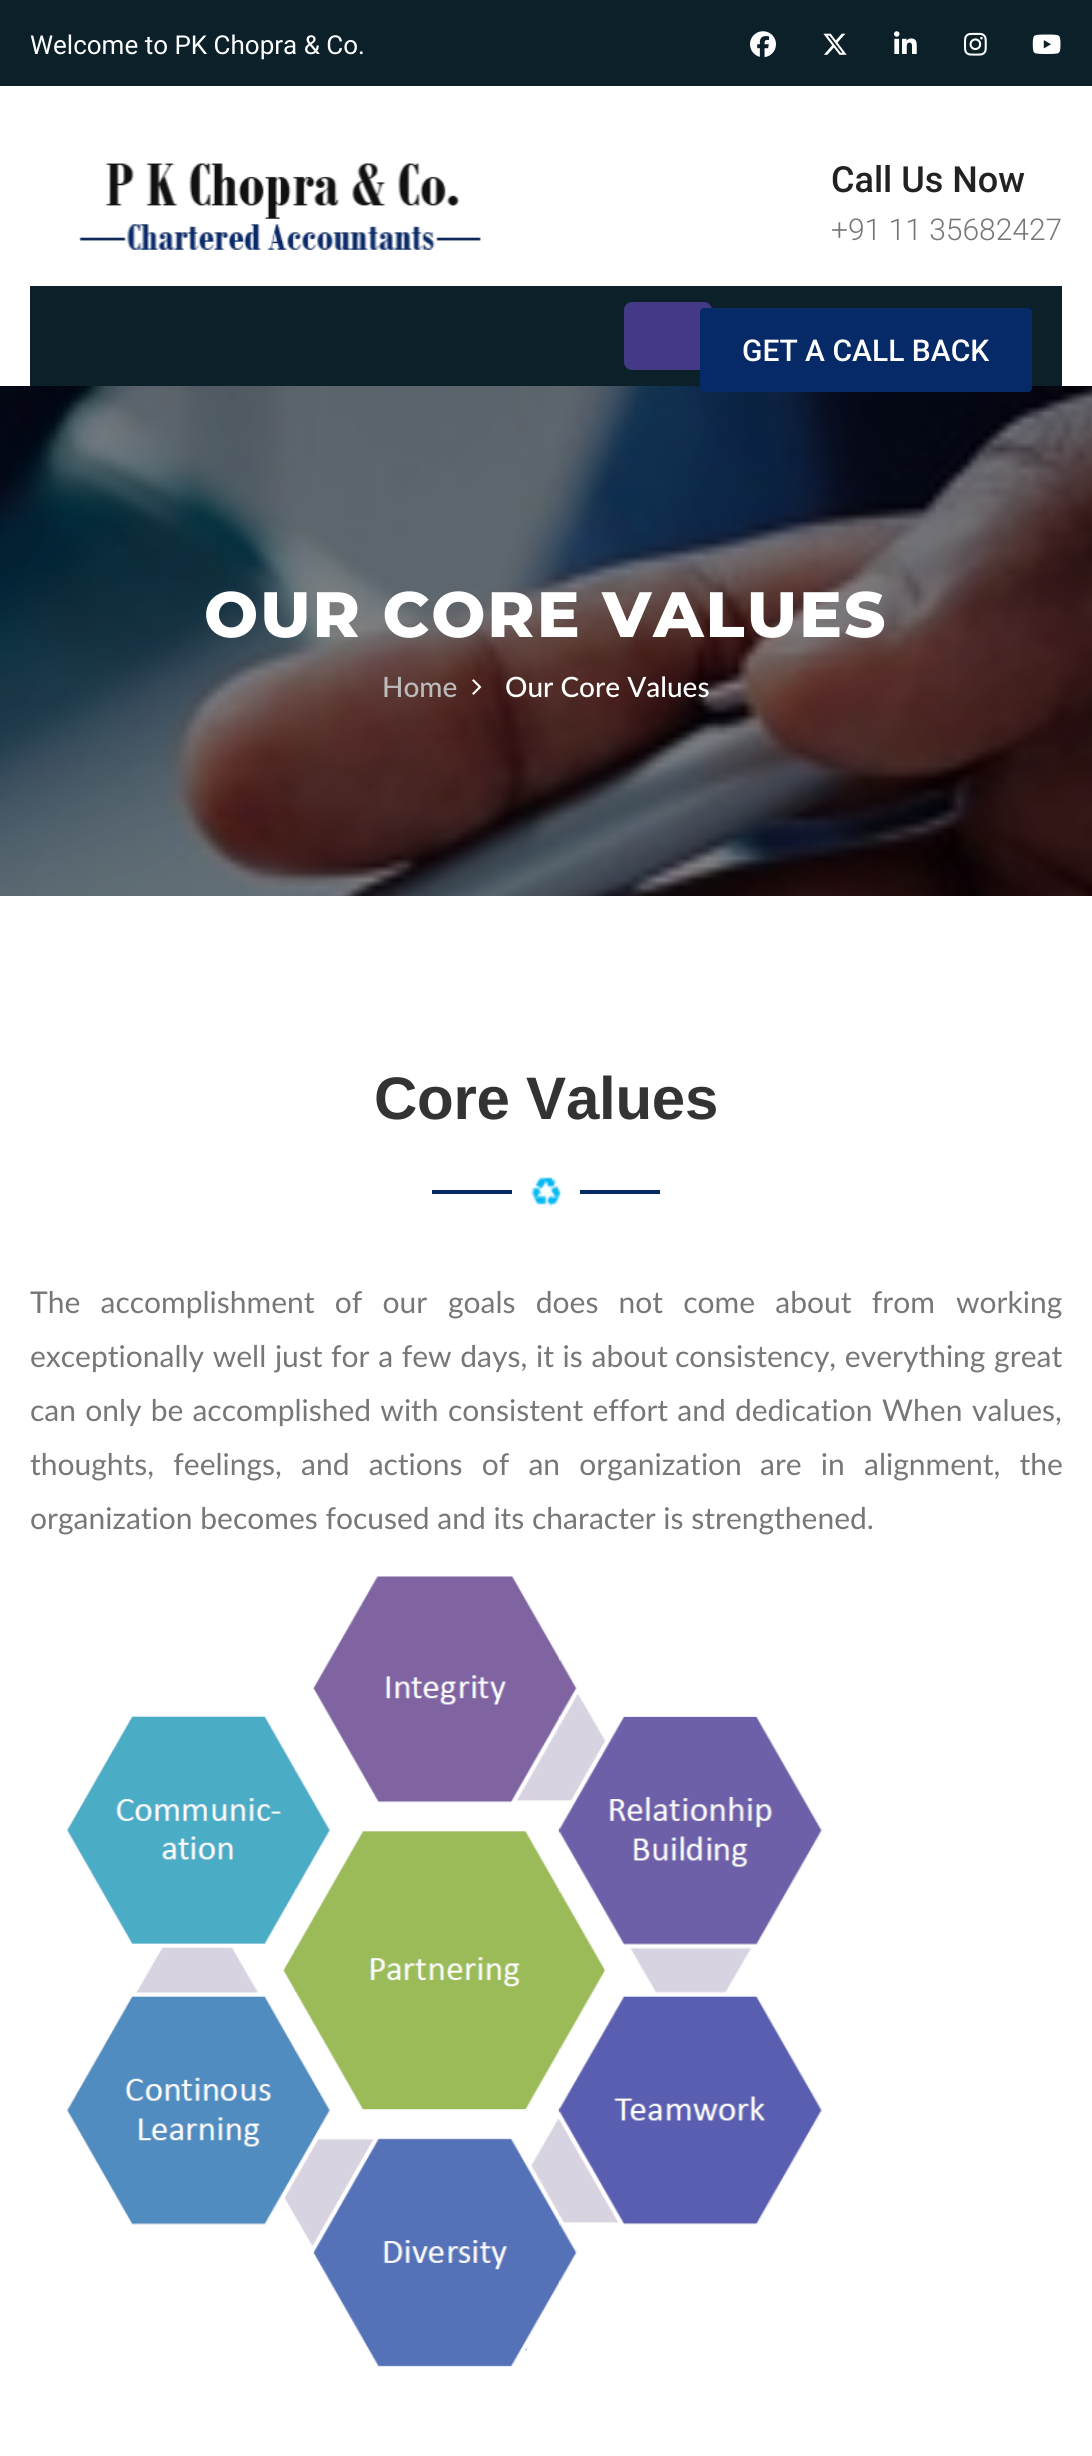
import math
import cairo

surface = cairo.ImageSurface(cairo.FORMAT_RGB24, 1092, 2456)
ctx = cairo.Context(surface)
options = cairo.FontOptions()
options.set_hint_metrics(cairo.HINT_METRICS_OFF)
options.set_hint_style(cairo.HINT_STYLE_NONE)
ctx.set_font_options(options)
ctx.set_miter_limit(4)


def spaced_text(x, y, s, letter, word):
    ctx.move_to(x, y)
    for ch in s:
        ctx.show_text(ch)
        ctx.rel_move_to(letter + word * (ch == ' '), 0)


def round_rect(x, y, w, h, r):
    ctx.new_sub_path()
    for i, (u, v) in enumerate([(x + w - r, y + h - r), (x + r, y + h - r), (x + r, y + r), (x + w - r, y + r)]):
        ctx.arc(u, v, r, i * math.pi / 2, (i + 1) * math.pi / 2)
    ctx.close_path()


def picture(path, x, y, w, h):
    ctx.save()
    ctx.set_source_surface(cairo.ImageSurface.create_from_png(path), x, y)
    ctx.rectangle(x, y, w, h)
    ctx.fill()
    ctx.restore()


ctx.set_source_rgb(1, 1, 1)
ctx.paint()
ctx.set_source_rgb(0.043, 0.125, 0.157)
ctx.rectangle(0, 0, 1092, 86)
ctx.fill()
ctx.select_font_face("Roboto")
ctx.set_font_size(26)
ctx.set_source_rgb(1, 1, 1)
ctx.move_to(30, 54)
ctx.show_text("Welcome to PK Chopra & Co.")
picture("img1.png", 750, 31, 26, 27)
picture("img2.png", 823, 33, 24, 22)
picture("img3.png", 894, 31, 23, 23)
picture("img4.png", 964, 32, 23, 24)
picture("img5.png", 1032, 34, 29, 20)
picture("img6.png", 79, 163, 402, 87)
ctx.select_font_face("Roboto Medium")
ctx.set_font_size(36)
ctx.set_source_rgb(0.133, 0.133, 0.133)
ctx.move_to(831, 192)
ctx.show_text("Call Us Now")
ctx.select_font_face("Roboto Light")
ctx.set_font_size(30)
ctx.set_source_rgb(0.467, 0.467, 0.467)
ctx.move_to(831, 240)
ctx.show_text("+91 11 35682427")
ctx.set_source_rgb(0.043, 0.125, 0.157)
ctx.rectangle(30, 286, 1032, 100)
ctx.fill()
ctx.set_source_rgb(0.267, 0.224, 0.525)
round_rect(625, 303, 86, 66, 7)
ctx.fill_preserve()
ctx.stroke()
picture("img7.png", 0, 386, 1092, 510)
ctx.set_source_rgb(0.027, 0.161, 0.408)
round_rect(700, 308, 332, 84, 4)
ctx.fill()
ctx.select_font_face("Roboto Medium")
ctx.set_source_rgb(1, 1, 1)
ctx.move_to(742, 361)
ctx.show_text("GET A CALL BACK")
ctx.select_font_face("Montserrat ExtraBold")
ctx.set_font_size(64)
spaced_text(204, 637, "OUR CORE VALUES", 2, 0)
ctx.select_font_face("Lato Medium")
ctx.set_font_size(28)
ctx.set_source_rgb(0.733, 0.733, 0.733)
ctx.move_to(382, 697)
ctx.show_text("Home")
picture("img8.png", 472, 679, 10, 16)
ctx.set_source_rgb(1, 1, 1)
ctx.move_to(505, 697)
ctx.show_text("Our Core Values")
ctx.select_font_face("Liberation Sans", cairo.FONT_SLANT_NORMAL, cairo.FONT_WEIGHT_BOLD)
ctx.set_font_size(60)
ctx.set_source_rgb(0.2, 0.2, 0.2)
spaced_text(374, 1119, "Core Values", -0.25, 0)
ctx.set_source_rgb(0.027, 0.161, 0.408)
ctx.rectangle(432, 1190, 80, 4)
ctx.fill()
picture("img9.png", 531, 1177, 30, 30)
ctx.rectangle(580, 1190, 80, 4)
ctx.fill()
ctx.select_font_face("Lato")
ctx.set_font_size(30)
ctx.set_source_rgb(0.467, 0.467, 0.467)
spaced_text(30, 1313, "The accomplishment of our", 0, 12.5)
spaced_text(448, 1313, "goals does not come about from", 0, 12.5)
ctx.move_to(956, 1313)
ctx.show_text("working")
spaced_text(30, 1367, "exceptionally well just", 0, 1)
spaced_text(331, 1367, "for a few days, it is about", 0, 1)
spaced_text(675, 1367, "consistency, everything great", 0, 1)
spaced_text(30, 1421, "can only be accomplished with", 0, 1.5)
spaced_text(448, 1421, "consistent effort and dedication", 0, 1.5)
spaced_text(882, 1421, "When values,", 0, 2)
spaced_text(30, 1475, "thoughts, feelings,", 0, 11.5)
spaced_text(301, 1475, "and actions of an organization", 0, 11.5)
spaced_text(760, 1475, "are in alignment, the", 0, 11.5)
ctx.move_to(30, 1529)
ctx.show_text("organization becomes focused and its character is strengthened.")
picture("img10.png", 66, 1576, 757, 791)
surface.write_to_png("page.png")
